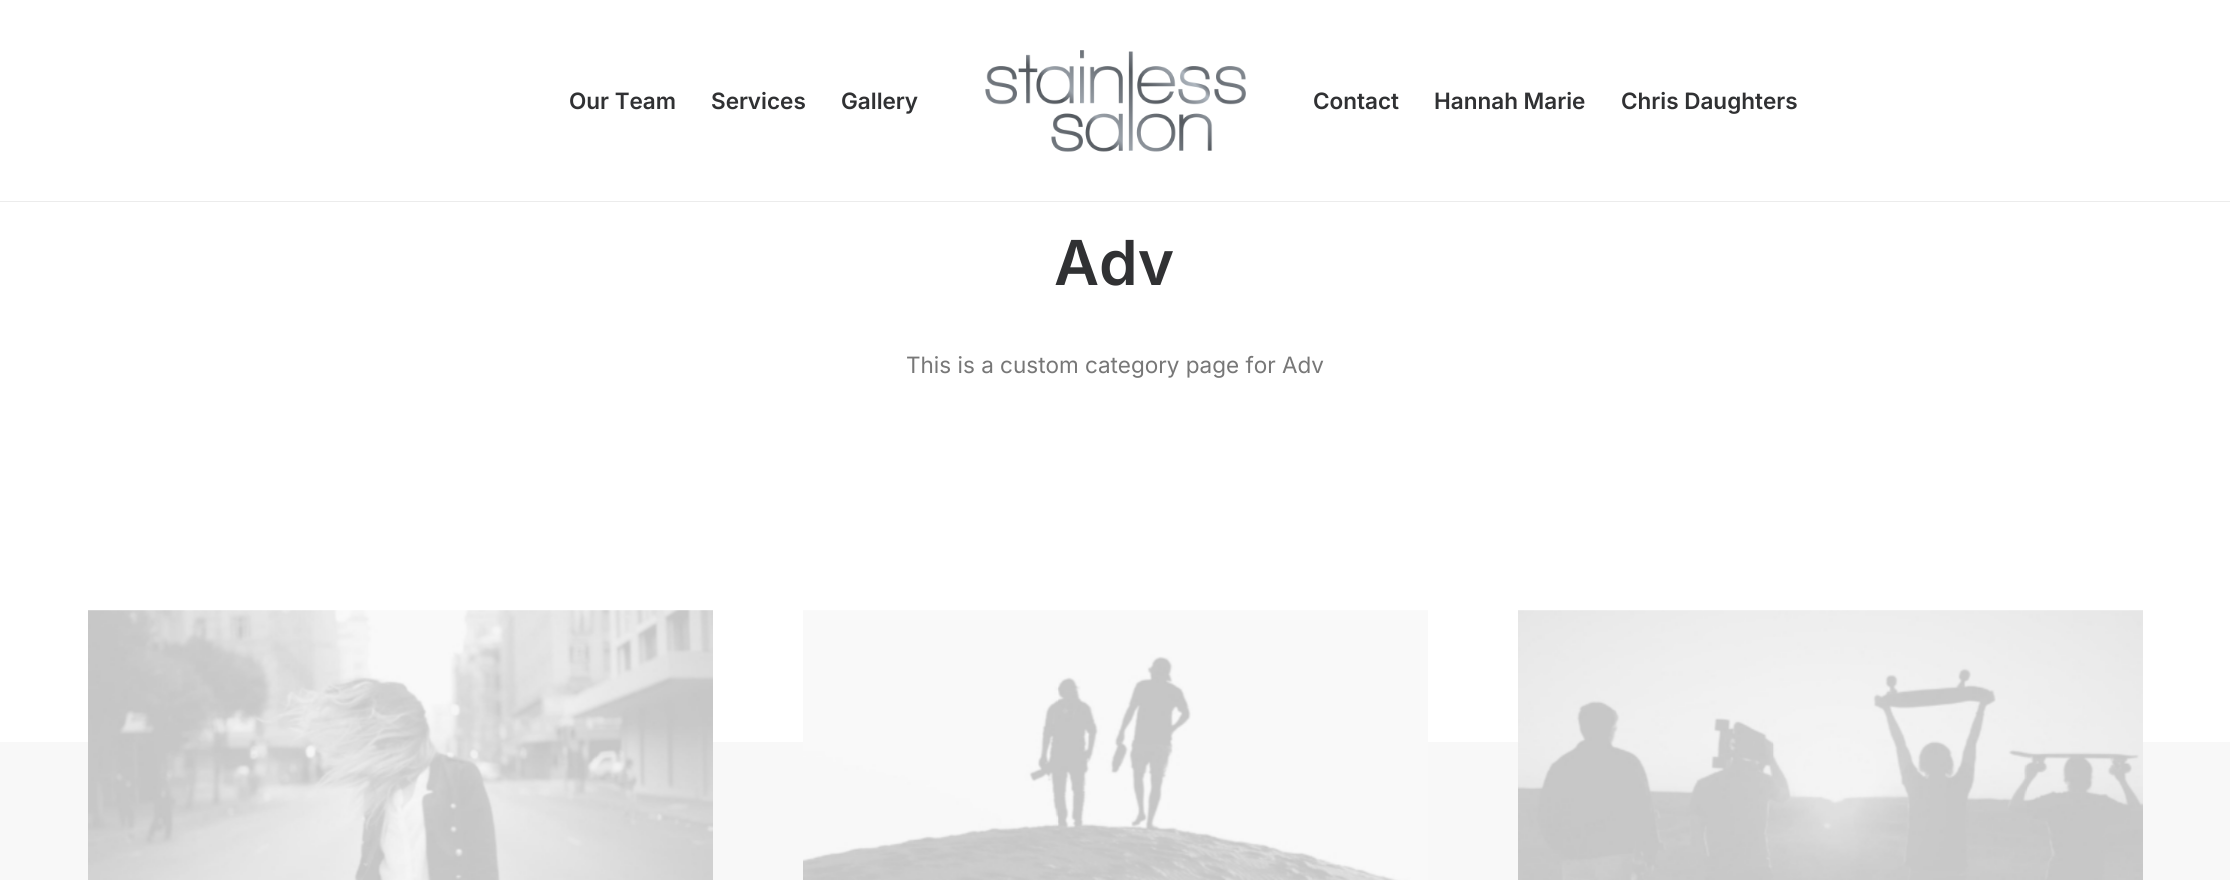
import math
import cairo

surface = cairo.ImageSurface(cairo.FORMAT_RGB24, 2230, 880)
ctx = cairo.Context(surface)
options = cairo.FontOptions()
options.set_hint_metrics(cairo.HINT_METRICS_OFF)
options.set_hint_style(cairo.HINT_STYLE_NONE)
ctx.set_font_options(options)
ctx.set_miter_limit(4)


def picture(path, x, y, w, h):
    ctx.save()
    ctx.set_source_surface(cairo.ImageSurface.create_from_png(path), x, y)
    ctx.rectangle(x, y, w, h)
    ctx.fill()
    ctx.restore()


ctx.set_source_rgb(1, 1, 1)
ctx.paint()
ctx.select_font_face("Inter SemiBold")
ctx.set_font_size(22.5)
ctx.set_source_rgb(0.188, 0.192, 0.2)
ctx.move_to(569, 109)
ctx.show_text("Our Team")
ctx.move_to(711, 109)
ctx.show_text("Services")
ctx.move_to(841, 109)
ctx.show_text("Gallery")
picture("img1.png", 985, 50, 261, 102)
ctx.move_to(1313, 109)
ctx.show_text("Contact")
ctx.move_to(1434, 109)
ctx.show_text("Hannah Marie")
ctx.move_to(1621, 109)
ctx.show_text("Chris Daughters")
ctx.set_source_rgb(0.922, 0.922, 0.922)
ctx.rectangle(0, 201, 2230, 1)
ctx.fill()
ctx.set_font_size(62)
ctx.set_source_rgb(0.188, 0.192, 0.2)
ctx.move_to(1054, 285)
ctx.show_text("Adv")
ctx.select_font_face("Inter")
ctx.set_font_size(22.5)
ctx.set_source_rgb(0.467, 0.467, 0.467)
ctx.move_to(906, 373)
ctx.show_text("This is a custom category page for Adv")
ctx.set_source_rgb(0.969, 0.969, 0.969)
ctx.rectangle(0, 742, 2230, 138)
ctx.fill()
picture("img2.png", 88, 610, 625, 270)
picture("img3.png", 803, 610, 625, 270)
picture("img4.png", 1518, 610, 625, 270)
surface.write_to_png("page.png")
